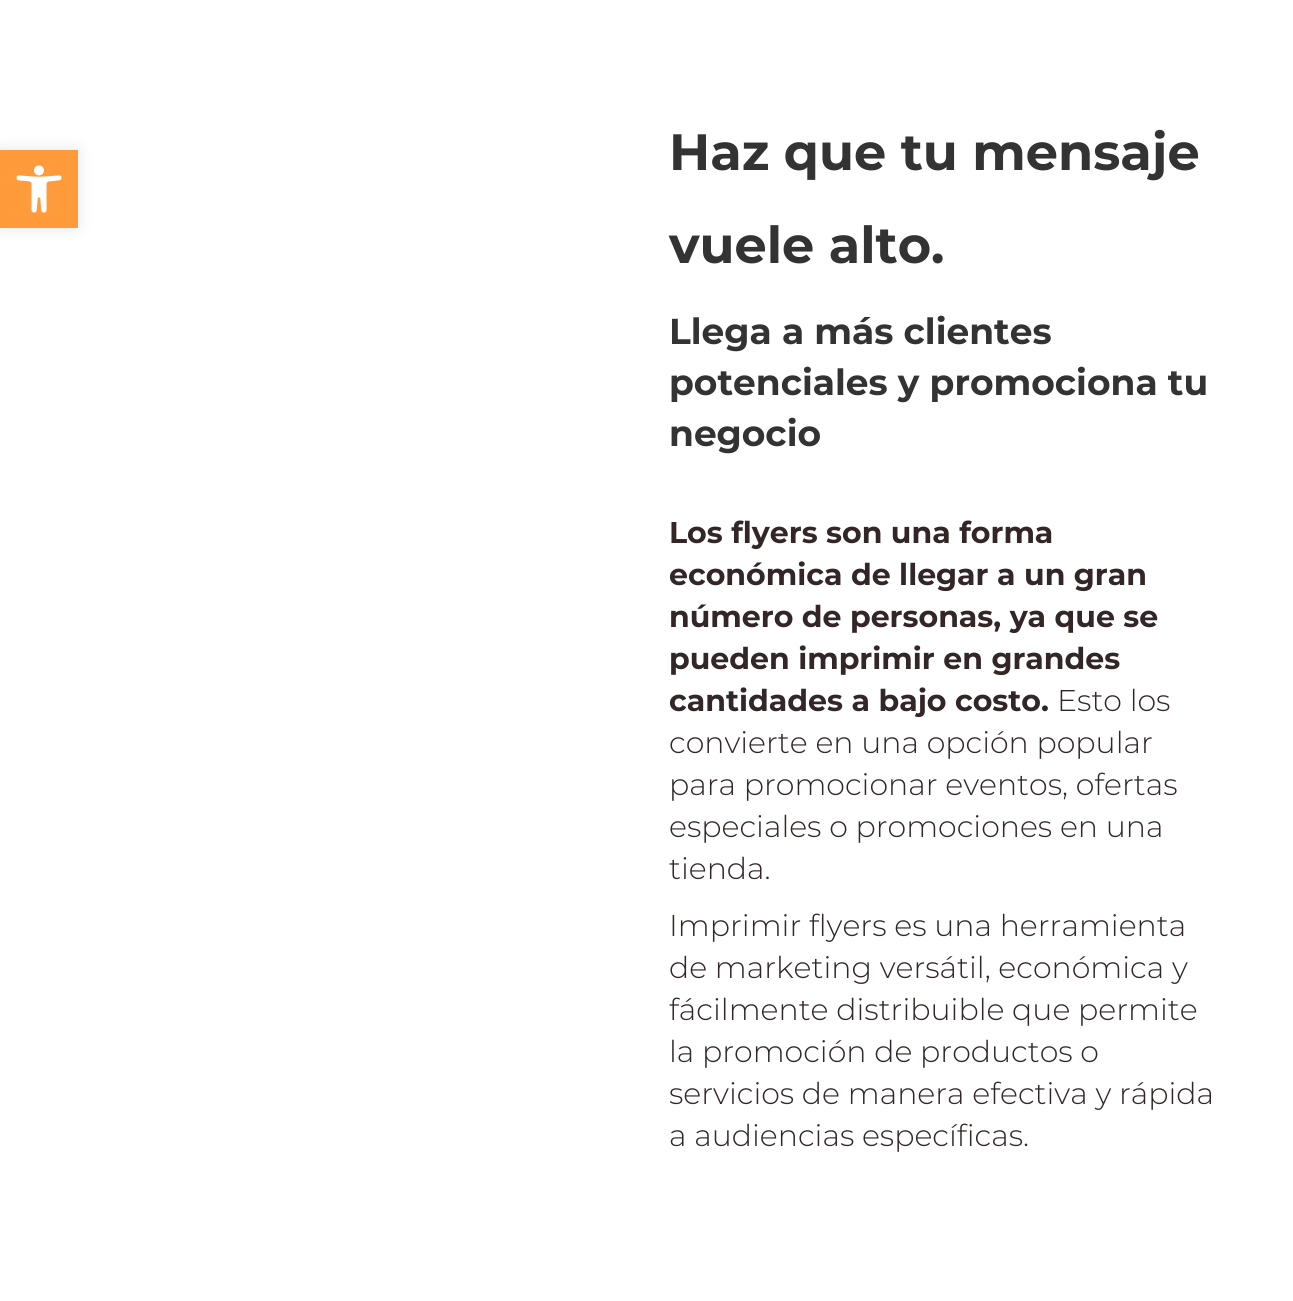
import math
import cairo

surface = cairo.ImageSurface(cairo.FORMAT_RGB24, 1293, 1301)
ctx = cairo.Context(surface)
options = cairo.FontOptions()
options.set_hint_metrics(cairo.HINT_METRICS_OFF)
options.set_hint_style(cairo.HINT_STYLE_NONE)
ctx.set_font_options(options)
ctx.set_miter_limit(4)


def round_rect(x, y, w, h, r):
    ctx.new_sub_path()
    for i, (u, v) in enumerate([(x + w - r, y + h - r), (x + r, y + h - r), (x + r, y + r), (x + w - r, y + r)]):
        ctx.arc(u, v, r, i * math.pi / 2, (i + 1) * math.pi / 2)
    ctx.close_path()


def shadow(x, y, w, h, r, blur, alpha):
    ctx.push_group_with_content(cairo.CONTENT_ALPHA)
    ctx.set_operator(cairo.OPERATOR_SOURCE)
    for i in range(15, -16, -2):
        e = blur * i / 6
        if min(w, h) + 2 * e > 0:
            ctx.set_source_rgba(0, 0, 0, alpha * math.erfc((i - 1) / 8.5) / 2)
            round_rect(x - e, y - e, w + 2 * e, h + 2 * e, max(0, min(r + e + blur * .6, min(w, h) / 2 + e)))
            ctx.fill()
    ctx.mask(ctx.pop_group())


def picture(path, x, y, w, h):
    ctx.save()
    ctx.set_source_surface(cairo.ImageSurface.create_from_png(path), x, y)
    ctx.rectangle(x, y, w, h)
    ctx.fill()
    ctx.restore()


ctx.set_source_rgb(1, 1, 1)
ctx.paint()
ctx.set_source_rgb(0, 0, 0)
shadow(0, 150, 78, 78, 0, 7.5, 0.1)
ctx.set_source_rgb(1, 0.608, 0.227)
ctx.rectangle(0, 150, 78, 78)
ctx.fill()
picture("img1.png", 16, 165, 46, 48)
ctx.select_font_face("Montserrat", cairo.FONT_SLANT_NORMAL, cairo.FONT_WEIGHT_BOLD)
ctx.set_font_size(51)
ctx.set_source_rgb(0.2, 0.2, 0.2)
ctx.move_to(669, 170)
ctx.show_text("Haz que tu mensaje")
ctx.move_to(669, 263)
ctx.show_text("vuele alto.")
ctx.set_font_size(36)
ctx.move_to(669, 344)
ctx.show_text("Llega a más clientes")
ctx.move_to(669, 395)
ctx.show_text("potenciales y promociona tu")
ctx.move_to(669, 446)
ctx.show_text("negocio")
ctx.set_font_size(30)
ctx.set_source_rgb(0.2, 0.149, 0.149)
ctx.move_to(669, 543)
ctx.show_text("Los flyers son una forma")
ctx.move_to(669, 585)
ctx.show_text("económica de llegar a un gran")
ctx.move_to(669, 627)
ctx.show_text("número de personas, ya que se")
ctx.move_to(669, 669)
ctx.show_text("pueden imprimir en grandes")
ctx.move_to(669, 711)
ctx.show_text("cantidades a bajo costo.")
ctx.select_font_face("Montserrat Light")
ctx.move_to(1057, 711)
ctx.show_text("Esto los")
ctx.move_to(669, 753)
ctx.show_text("convierte en una opción popular")
ctx.move_to(669, 795)
ctx.show_text("para promocionar eventos, ofertas")
ctx.move_to(669, 837)
ctx.show_text("especiales o promociones en una")
ctx.move_to(669, 879)
ctx.show_text("tienda.")
ctx.move_to(669, 936)
ctx.show_text("Imprimir flyers es una herramienta")
ctx.move_to(669, 978)
ctx.show_text("de marketing versátil, económica y")
ctx.move_to(669, 1020)
ctx.show_text("fácilmente distribuible que permite")
ctx.move_to(669, 1062)
ctx.show_text("la promoción de productos o")
ctx.move_to(669, 1104)
ctx.show_text("servicios de manera efectiva y rápida")
ctx.move_to(669, 1146)
ctx.show_text("a audiencias específicas.")
surface.write_to_png("page.png")
